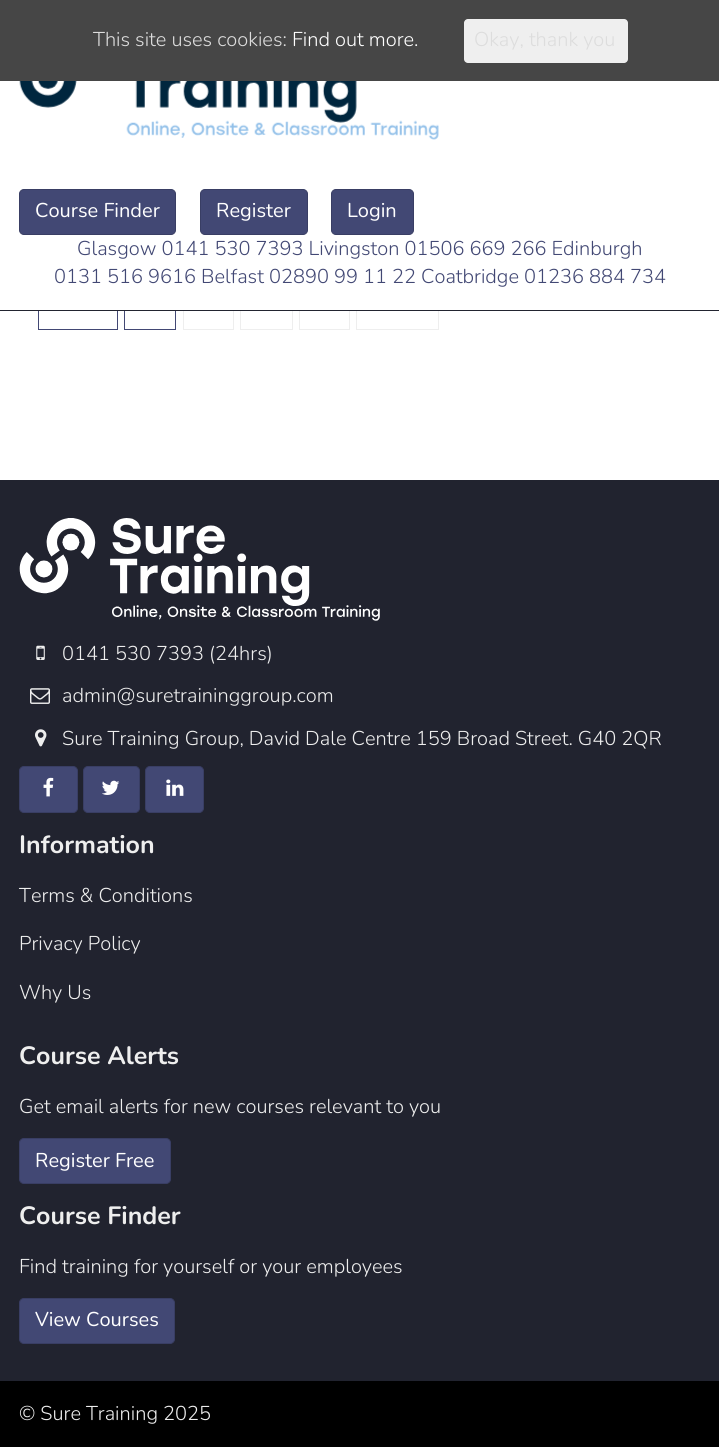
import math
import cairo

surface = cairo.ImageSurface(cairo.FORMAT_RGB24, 719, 1447)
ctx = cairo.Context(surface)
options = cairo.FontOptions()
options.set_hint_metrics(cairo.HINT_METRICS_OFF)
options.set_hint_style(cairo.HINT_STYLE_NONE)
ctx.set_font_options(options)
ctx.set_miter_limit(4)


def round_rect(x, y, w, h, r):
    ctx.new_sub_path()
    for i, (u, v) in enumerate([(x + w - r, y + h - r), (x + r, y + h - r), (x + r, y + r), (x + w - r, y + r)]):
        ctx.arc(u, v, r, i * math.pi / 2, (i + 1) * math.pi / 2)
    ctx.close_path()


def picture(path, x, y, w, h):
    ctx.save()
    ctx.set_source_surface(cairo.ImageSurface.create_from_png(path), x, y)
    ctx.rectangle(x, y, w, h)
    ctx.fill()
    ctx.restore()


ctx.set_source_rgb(1, 1, 1)
ctx.paint()
ctx.set_source_rgb(0.275, 0.275, 0.275)
ctx.rectangle(0, 0, 719, 81)
ctx.fill()
ctx.select_font_face("Nunito Light")
ctx.set_font_size(20)
ctx.set_source_rgb(0.867, 0.867, 0.867)
ctx.move_to(93, 46)
ctx.show_text("This site uses cookies:")
ctx.set_source_rgb(1, 1, 1)
ctx.move_to(292, 46)
ctx.show_text("Find out more.")
ctx.set_source_rgb(0.937, 0.937, 0.937)
round_rect(464, 19, 164, 44, 4)
ctx.fill()
ctx.set_source_rgb(0.867, 0.867, 0.867)
ctx.move_to(474, 46)
ctx.show_text("Okay, thank you")
ctx.rectangle(38.5, 286.5, 79, 43)
ctx.set_source_rgb(0.259, 0.282, 0.455)
ctx.set_line_width(1)
ctx.stroke()
ctx.rectangle(124.5, 286.5, 51, 43)
ctx.stroke()
ctx.rectangle(183.5, 286.5, 50, 43)
ctx.set_source_rgb(0.933, 0.933, 0.933)
ctx.stroke()
ctx.rectangle(240.5, 286.5, 52, 43)
ctx.stroke()
ctx.rectangle(299.5, 286.5, 50, 43)
ctx.stroke()
ctx.rectangle(356.5, 286.5, 82, 43)
ctx.stroke()
ctx.set_source_rgb(1, 1, 1)
ctx.rectangle(38, 286, 401, 24)
ctx.fill()
ctx.set_source_rgb(0.133, 0.141, 0.188)
ctx.rectangle(0, 310, 719, 1)
ctx.fill()
picture("img1.png", 19, 81, 420, 59)
ctx.set_source_rgb(0.259, 0.282, 0.455)
round_rect(19.5, 189.5, 156, 45, 4.5)
ctx.fill_preserve()
ctx.set_source_rgb(0.224, 0.243, 0.392)
ctx.stroke()
ctx.select_font_face("Nunito")
ctx.set_source_rgb(1, 1, 1)
ctx.move_to(35, 217)
ctx.show_text("Course Finder")
ctx.set_source_rgb(0.259, 0.282, 0.455)
round_rect(200.5, 189.5, 107, 45, 4.5)
ctx.fill_preserve()
ctx.set_source_rgb(0.224, 0.243, 0.392)
ctx.stroke()
ctx.set_source_rgb(1, 1, 1)
ctx.move_to(216, 217)
ctx.show_text("Register")
ctx.set_source_rgb(0.259, 0.282, 0.455)
round_rect(331.5, 189.5, 82, 45, 4.5)
ctx.fill_preserve()
ctx.set_source_rgb(0.224, 0.243, 0.392)
ctx.stroke()
ctx.set_source_rgb(1, 1, 1)
ctx.move_to(347, 217)
ctx.show_text("Login")
ctx.select_font_face("Nunito Light")
ctx.set_source_rgb(0.259, 0.282, 0.455)
ctx.move_to(77, 255)
ctx.show_text("Glasgow 0141 530 7393 Livingston 01506 669 266 Edinburgh")
ctx.move_to(54, 283)
ctx.show_text("0131 516 9616 Belfast 02890 99 11 22 Coatbridge 01236 884 734")
ctx.set_source_rgb(0.129, 0.137, 0.184)
ctx.rectangle(0, 480, 719, 901)
ctx.fill()
picture("img2.png", 19, 518, 361, 103)
picture("img3.png", 36, 645, 9, 15)
ctx.set_source_rgb(0.933, 0.933, 0.933)
ctx.move_to(62, 660)
ctx.show_text("0141 530 7393 (24hrs)")
picture("img4.png", 30, 688, 20, 16)
ctx.move_to(62, 702)
ctx.show_text("admin@suretraininggroup.com")
picture("img5.png", 35, 729, 12, 18)
ctx.move_to(62, 745)
ctx.show_text("Sure Training Group, David Dale Centre 159 Broad Street. G40 2QR")
ctx.set_source_rgb(0.259, 0.282, 0.455)
round_rect(19.5, 766.5, 58, 46, 4.5)
ctx.fill_preserve()
ctx.set_source_rgb(0.224, 0.243, 0.392)
ctx.stroke()
picture("img6.png", 43, 777, 11, 20)
ctx.set_source_rgb(0.259, 0.282, 0.455)
round_rect(83.5, 766.5, 56, 46, 4.5)
ctx.fill_preserve()
ctx.set_source_rgb(0.224, 0.243, 0.392)
ctx.stroke()
picture("img7.png", 102, 780, 18, 15)
ctx.set_source_rgb(0.259, 0.282, 0.455)
round_rect(145.5, 766.5, 58, 46, 4.5)
ctx.fill_preserve()
ctx.set_source_rgb(0.224, 0.243, 0.392)
ctx.stroke()
picture("img8.png", 166, 779, 18, 17)
ctx.select_font_face("Nunito", cairo.FONT_SLANT_NORMAL, cairo.FONT_WEIGHT_BOLD)
ctx.set_font_size(25)
ctx.set_source_rgb(0.933, 0.933, 0.933)
ctx.move_to(19, 853)
ctx.show_text("Information")
ctx.select_font_face("Nunito Light")
ctx.set_font_size(20)
ctx.move_to(19, 902)
ctx.show_text("Terms & Conditions")
ctx.move_to(19, 950)
ctx.show_text("Privacy Policy")
ctx.move_to(19, 999)
ctx.show_text("Why Us")
ctx.select_font_face("Nunito", cairo.FONT_SLANT_NORMAL, cairo.FONT_WEIGHT_BOLD)
ctx.set_font_size(25)
ctx.move_to(19, 1064)
ctx.show_text("Course Alerts")
ctx.select_font_face("Nunito Light")
ctx.set_font_size(20)
ctx.move_to(19, 1113)
ctx.show_text("Get email alerts for new courses relevant to you")
ctx.set_source_rgb(0.259, 0.282, 0.455)
round_rect(19.5, 1138.5, 151, 45, 4.5)
ctx.fill_preserve()
ctx.set_source_rgb(0.224, 0.243, 0.392)
ctx.stroke()
ctx.select_font_face("Nunito")
ctx.set_source_rgb(1, 1, 1)
ctx.move_to(35, 1167)
ctx.show_text("Register Free")
ctx.select_font_face("Nunito", cairo.FONT_SLANT_NORMAL, cairo.FONT_WEIGHT_BOLD)
ctx.set_font_size(25)
ctx.set_source_rgb(0.933, 0.933, 0.933)
ctx.move_to(19, 1224)
ctx.show_text("Course Finder")
ctx.select_font_face("Nunito Light")
ctx.set_font_size(20)
ctx.move_to(19, 1273)
ctx.show_text("Find training for yourself or your employees")
ctx.set_source_rgb(0.259, 0.282, 0.455)
round_rect(19.5, 1298.5, 155, 45, 4.5)
ctx.fill_preserve()
ctx.set_source_rgb(0.224, 0.243, 0.392)
ctx.stroke()
ctx.select_font_face("Nunito")
ctx.set_source_rgb(1, 1, 1)
ctx.move_to(35, 1326)
ctx.show_text("View Courses")
ctx.set_source_rgb(0, 0, 0)
ctx.rectangle(0, 1381, 719, 66)
ctx.fill()
ctx.select_font_face("Nunito Light")
ctx.set_source_rgb(0.933, 0.933, 0.933)
ctx.move_to(19, 1420)
ctx.show_text("© Sure Training 2025")
surface.write_to_png("page.png")
